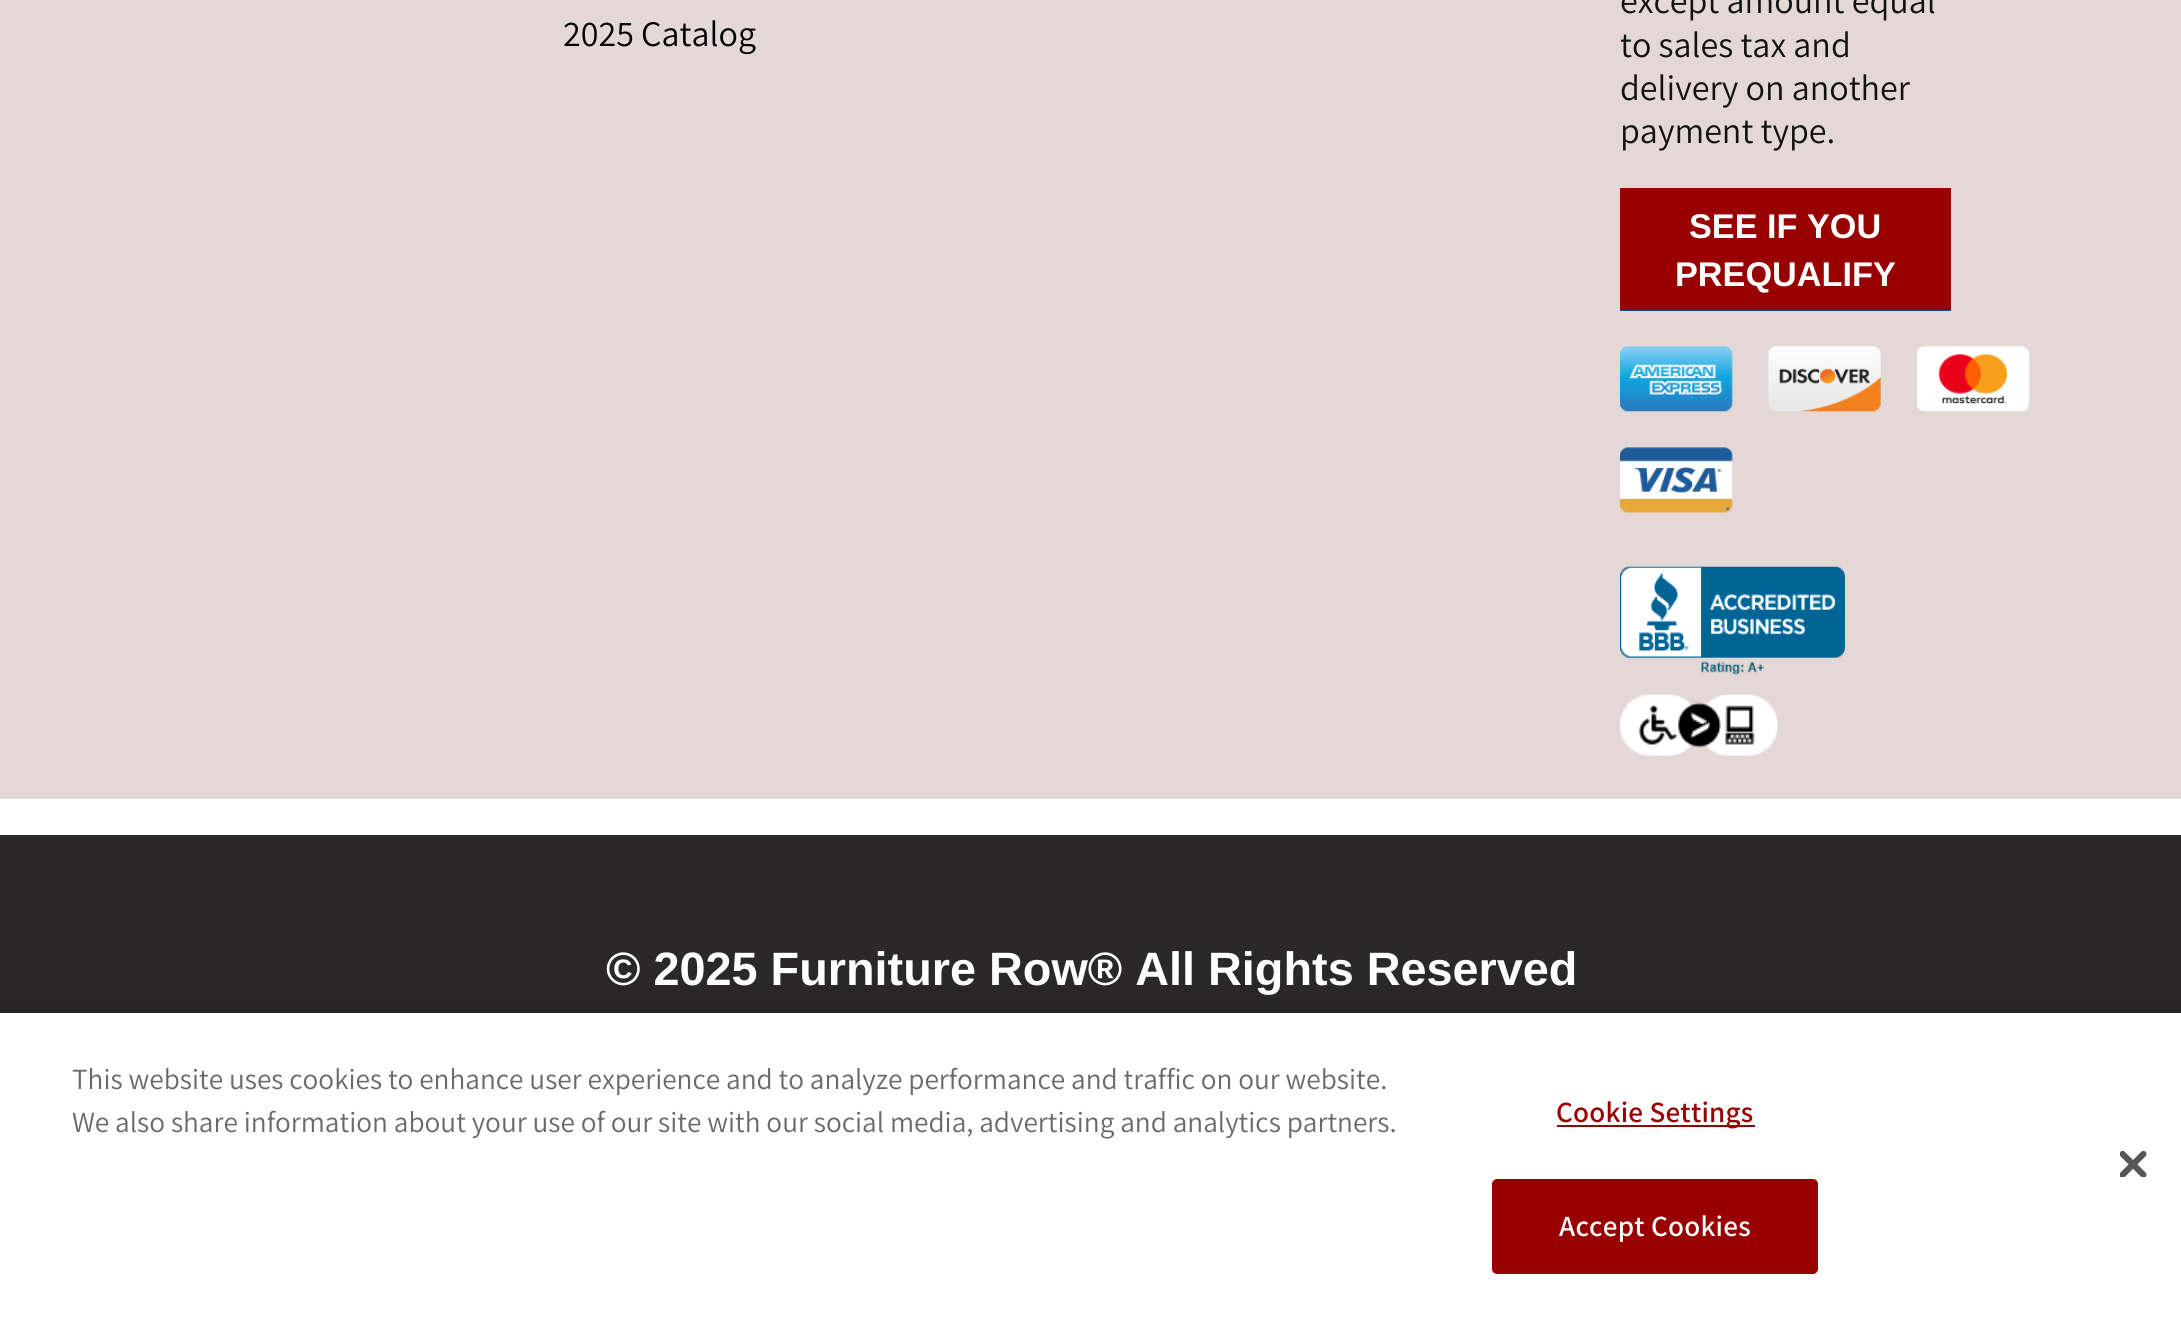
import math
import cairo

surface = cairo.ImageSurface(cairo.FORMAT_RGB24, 2181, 1317)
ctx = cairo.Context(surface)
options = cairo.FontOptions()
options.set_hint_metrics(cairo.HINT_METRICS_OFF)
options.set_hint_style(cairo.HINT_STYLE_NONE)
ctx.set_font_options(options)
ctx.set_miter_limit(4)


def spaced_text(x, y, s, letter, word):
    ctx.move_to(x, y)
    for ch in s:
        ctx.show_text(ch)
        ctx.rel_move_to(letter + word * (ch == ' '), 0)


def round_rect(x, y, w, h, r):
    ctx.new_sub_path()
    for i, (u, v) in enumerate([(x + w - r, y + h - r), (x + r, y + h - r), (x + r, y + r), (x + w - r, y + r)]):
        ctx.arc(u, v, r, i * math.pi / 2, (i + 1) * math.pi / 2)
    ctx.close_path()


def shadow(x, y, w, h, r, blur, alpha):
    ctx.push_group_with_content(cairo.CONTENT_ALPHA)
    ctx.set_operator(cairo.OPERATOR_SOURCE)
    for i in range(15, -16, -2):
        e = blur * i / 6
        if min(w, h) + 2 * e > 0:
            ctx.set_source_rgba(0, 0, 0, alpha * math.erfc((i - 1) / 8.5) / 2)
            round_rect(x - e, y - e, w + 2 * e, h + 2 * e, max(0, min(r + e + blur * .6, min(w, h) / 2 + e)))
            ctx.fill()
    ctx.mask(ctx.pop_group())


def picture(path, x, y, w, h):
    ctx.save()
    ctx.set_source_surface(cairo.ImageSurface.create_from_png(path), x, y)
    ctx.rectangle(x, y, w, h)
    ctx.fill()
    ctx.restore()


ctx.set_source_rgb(0.89, 0.847, 0.839)
ctx.paint()
ctx.select_font_face("Assistant")
ctx.set_font_size(36)
ctx.set_source_rgb(0.008, 0.008, 0.008)
ctx.move_to(563, 46)
ctx.show_text("2025 Catalog")
ctx.set_source_rgb(0.071, 0.067, 0.067)
ctx.move_to(1620, 13)
ctx.show_text("except amount equal")
ctx.move_to(1620, 57)
ctx.show_text("to sales tax and")
ctx.move_to(1620, 100)
ctx.show_text("delivery on another")
ctx.move_to(1620, 143)
ctx.show_text("payment type.")
ctx.set_source_rgb(0.059, 0.298, 0.592)
ctx.rectangle(1620, 310, 331, 1)
ctx.fill()
ctx.set_source_rgb(0.6, 0, 0)
ctx.rectangle(1620, 188, 331, 122)
ctx.fill()
ctx.select_font_face("Liberation Sans", cairo.FONT_SLANT_NORMAL, cairo.FONT_WEIGHT_BOLD)
ctx.set_font_size(34.25)
ctx.set_source_rgb(1, 1, 1)
ctx.move_to(1689, 238)
ctx.show_text("SEE IF YOU")
ctx.move_to(1675, 286)
ctx.show_text("PREQUALIFY")
picture("img1.png", 1620, 346, 113, 66)
picture("img2.png", 1768, 346, 113, 66)
picture("img3.png", 1917, 346, 113, 66)
picture("img4.png", 1620, 447, 113, 66)
picture("img5.png", 1620, 566, 225, 109)
picture("img6.png", 1620, 694, 158, 62)
ctx.set_source_rgb(0.165, 0.157, 0.157)
ctx.rectangle(0, 835, 2181, 178)
ctx.fill()
ctx.set_source_rgb(1, 1, 1)
ctx.rectangle(0, 799, 2181, 36)
ctx.fill()
ctx.set_font_size(46.8)
ctx.move_to(606, 985)
ctx.show_text("© 2025 Furniture Row® All Rights Reserved")
ctx.set_source_rgb(0, 0, 0)
shadow(0, 1013, 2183, 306, 0, 20, 0.2)
ctx.set_source_rgb(1, 1, 1)
ctx.rectangle(0, 1013, 2181, 304)
ctx.fill()
ctx.select_font_face("Assistant")
ctx.set_font_size(29.25)
ctx.set_source_rgb(0.412, 0.412, 0.412)
ctx.move_to(72, 1089)
ctx.show_text("This website uses cookies to enhance user experience and to analyze performance and traffic on our website.")
ctx.move_to(72, 1132)
ctx.show_text("We also share information about your use of our site with our social media, advertising and analytics partners.")
ctx.set_source_rgb(0.6, 0, 0)
ctx.rectangle(1557, 1125, 198, 2)
ctx.fill()
ctx.select_font_face("Assistant SemiBold")
spaced_text(1556, 1122, "Cookie Settings", 0.25, 0)
round_rect(1493, 1180, 324, 93, 4)
ctx.fill_preserve()
ctx.stroke()
ctx.set_source_rgb(1, 1, 1)
spaced_text(1559, 1236, "Accept Cookies", 0.25, 0)
picture("img7.png", 2120, 1150, 27, 27)
surface.write_to_png("page.png")
